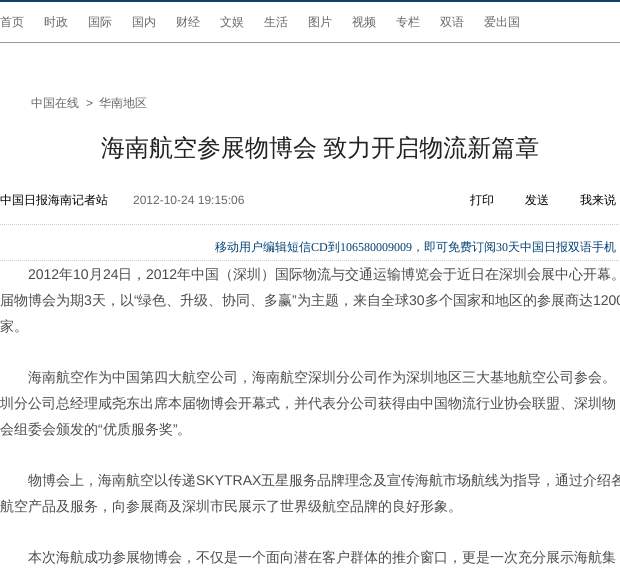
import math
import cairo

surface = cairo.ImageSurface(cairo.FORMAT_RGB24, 620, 577)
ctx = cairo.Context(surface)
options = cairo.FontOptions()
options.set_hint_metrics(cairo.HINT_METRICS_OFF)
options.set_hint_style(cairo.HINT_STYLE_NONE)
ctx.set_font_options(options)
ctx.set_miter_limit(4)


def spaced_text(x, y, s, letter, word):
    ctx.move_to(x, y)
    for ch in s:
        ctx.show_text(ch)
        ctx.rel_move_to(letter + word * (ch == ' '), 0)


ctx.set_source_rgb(1, 1, 1)
ctx.paint()
ctx.set_source_rgb(0.063, 0.255, 0.416)
ctx.rectangle(0, 0, 620, 2)
ctx.fill()
ctx.set_source_rgb(0.6, 0.6, 0.6)
ctx.rectangle(0, 42, 620, 1)
ctx.fill()
ctx.select_font_face("WenQuanYi Zen Hei Medium")
ctx.set_font_size(12)
ctx.set_source_rgb(0.4, 0.4, 0.4)
ctx.move_to(0, 26)
ctx.show_text("首页")
ctx.move_to(44, 26)
ctx.show_text("时政")
ctx.move_to(88, 26)
ctx.show_text("国际")
ctx.move_to(132, 26)
ctx.show_text("国内")
ctx.move_to(176, 26)
ctx.show_text("财经")
ctx.move_to(220, 26)
ctx.show_text("文娱")
ctx.move_to(264, 26)
ctx.show_text("生活")
ctx.move_to(308, 26)
ctx.show_text("图片")
ctx.move_to(352, 26)
ctx.show_text("视频")
ctx.move_to(396, 26)
ctx.show_text("专栏")
ctx.move_to(440, 26)
ctx.show_text("双语")
ctx.move_to(484, 26)
ctx.show_text("爱出国")
ctx.move_to(31, 107)
ctx.show_text("中国在线")
ctx.select_font_face("Liberation Sans")
ctx.move_to(86, 107)
ctx.show_text(">")
ctx.select_font_face("WenQuanYi Zen Hei Medium")
ctx.move_to(99, 107)
ctx.show_text("华南地区")
ctx.set_font_size(24)
ctx.set_source_rgb(0.129, 0.129, 0.129)
spaced_text(101, 156, "海南航空参展物博会 致力开启物流新篇章", 0, -1)
ctx.new_path()
ctx.move_to(0, 224.5)
ctx.line_to(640, 224.5)
ctx.set_source_rgb(0.8, 0.8, 0.8)
ctx.set_line_width(1)
ctx.set_dash([1, 1])
ctx.stroke()
ctx.set_font_size(12)
ctx.set_source_rgb(0, 0, 0)
ctx.move_to(0, 204)
ctx.show_text("中国日报海南记者站")
ctx.select_font_face("Liberation Sans")
ctx.set_source_rgb(0.4, 0.4, 0.4)
ctx.move_to(133, 204)
ctx.show_text("2012-10-24 19:15:06")
ctx.select_font_face("WenQuanYi Zen Hei Medium")
ctx.set_source_rgb(0, 0, 0)
ctx.move_to(470, 204)
ctx.show_text("打印")
ctx.move_to(525, 204)
ctx.show_text("发送")
ctx.move_to(580, 204)
ctx.show_text("我来说")
ctx.new_path()
ctx.move_to(0, 260.5)
ctx.line_to(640, 260.5)
ctx.set_source_rgb(0.8, 0.8, 0.8)
ctx.stroke()
ctx.set_source_rgb(0.004, 0.251, 0.451)
ctx.move_to(215, 251)
ctx.show_text("移动用户编辑短信")
ctx.select_font_face("Liberation Serif")
ctx.move_to(311, 251)
ctx.show_text("CD")
ctx.select_font_face("WenQuanYi Zen Hei Medium")
ctx.move_to(328, 251)
ctx.show_text("到")
ctx.select_font_face("Liberation Serif")
ctx.move_to(340, 251)
ctx.show_text("106580009009")
ctx.select_font_face("WenQuanYi Zen Hei Medium")
ctx.move_to(412, 251)
ctx.show_text("，即可免费订阅")
ctx.select_font_face("Liberation Serif")
ctx.move_to(496, 251)
ctx.show_text("30")
ctx.select_font_face("WenQuanYi Zen Hei Medium")
ctx.move_to(508, 251)
ctx.show_text("天中国日报双语手机")
ctx.select_font_face("Liberation Sans")
ctx.set_font_size(14)
ctx.set_source_rgb(0.294, 0.294, 0.294)
ctx.move_to(28, 279)
ctx.show_text("2012")
ctx.select_font_face("WenQuanYi Zen Hei Medium")
ctx.move_to(59, 279)
ctx.show_text("年")
ctx.select_font_face("Liberation Sans")
ctx.move_to(73, 279)
ctx.show_text("10")
ctx.select_font_face("WenQuanYi Zen Hei Medium")
ctx.move_to(89, 279)
ctx.show_text("月")
ctx.select_font_face("Liberation Sans")
ctx.move_to(103, 279)
ctx.show_text("24")
ctx.select_font_face("WenQuanYi Zen Hei Medium")
ctx.move_to(118, 279)
ctx.show_text("日，")
ctx.select_font_face("Liberation Sans")
ctx.move_to(146, 279)
ctx.show_text("2012")
ctx.select_font_face("WenQuanYi Zen Hei Medium")
ctx.move_to(177, 279)
ctx.show_text("年中国（深圳）国际物流与交通运输博览会于近日在深圳会展中心开幕。")
ctx.move_to(0, 305)
ctx.show_text("届物博会为期")
ctx.select_font_face("Liberation Sans")
ctx.move_to(84, 305)
ctx.show_text("3")
ctx.select_font_face("WenQuanYi Zen Hei Medium")
ctx.move_to(92, 305)
ctx.show_text("天，以")
ctx.select_font_face("Liberation Sans")
ctx.move_to(134, 305)
ctx.show_text("“")
ctx.select_font_face("WenQuanYi Zen Hei Medium")
ctx.move_to(138, 305)
ctx.show_text("绿色、升级、协同、多赢")
ctx.select_font_face("Liberation Sans")
ctx.move_to(292, 305)
ctx.show_text("”")
ctx.select_font_face("WenQuanYi Zen Hei Medium")
ctx.move_to(297, 305)
ctx.show_text("为主题，来自全球")
ctx.select_font_face("Liberation Sans")
ctx.move_to(409, 305)
ctx.show_text("30")
ctx.select_font_face("WenQuanYi Zen Hei Medium")
ctx.move_to(425, 305)
ctx.show_text("多个国家和地区的参展商达")
ctx.select_font_face("Liberation Sans")
ctx.move_to(593, 305)
ctx.show_text("1200")
ctx.select_font_face("WenQuanYi Zen Hei Medium")
ctx.move_to(0, 331)
ctx.show_text("家。")
ctx.move_to(28, 382)
ctx.show_text("海南航空作为中国第四大航空公司，海南航空深圳分公司作为深圳地区三大基地航空公司参会。")
ctx.move_to(0, 408)
ctx.show_text("圳分公司总经理咸尧东出席本届物博会开幕式，并代表分公司获得由中国物流行业协会联盟、深圳物")
ctx.move_to(0, 434)
ctx.show_text("会组委会颁发的")
ctx.select_font_face("Liberation Sans")
ctx.move_to(98, 434)
ctx.show_text("“")
ctx.select_font_face("WenQuanYi Zen Hei Medium")
ctx.move_to(103, 434)
ctx.show_text("优质服务奖")
ctx.select_font_face("Liberation Sans")
ctx.move_to(173, 434)
ctx.show_text("”")
ctx.select_font_face("WenQuanYi Zen Hei Medium")
ctx.move_to(177, 434)
ctx.show_text("。")
ctx.move_to(28, 485)
ctx.show_text("物博会上，海南航空以传递")
ctx.select_font_face("Liberation Sans")
ctx.move_to(196, 485)
ctx.show_text("SKYTRAX")
ctx.select_font_face("WenQuanYi Zen Hei Medium")
ctx.move_to(261, 485)
ctx.show_text("五星服务品牌理念及宣传海航市场航线为指导，通过介绍各")
ctx.move_to(0, 511)
ctx.show_text("航空产品及服务，向参展商及深圳市民展示了世界级航空品牌的良好形象。")
ctx.move_to(28, 562)
ctx.show_text("本次海航成功参展物博会，不仅是一个面向潜在客户群体的推介窗口，更是一次充分展示海航集")
surface.write_to_png("page.png")
